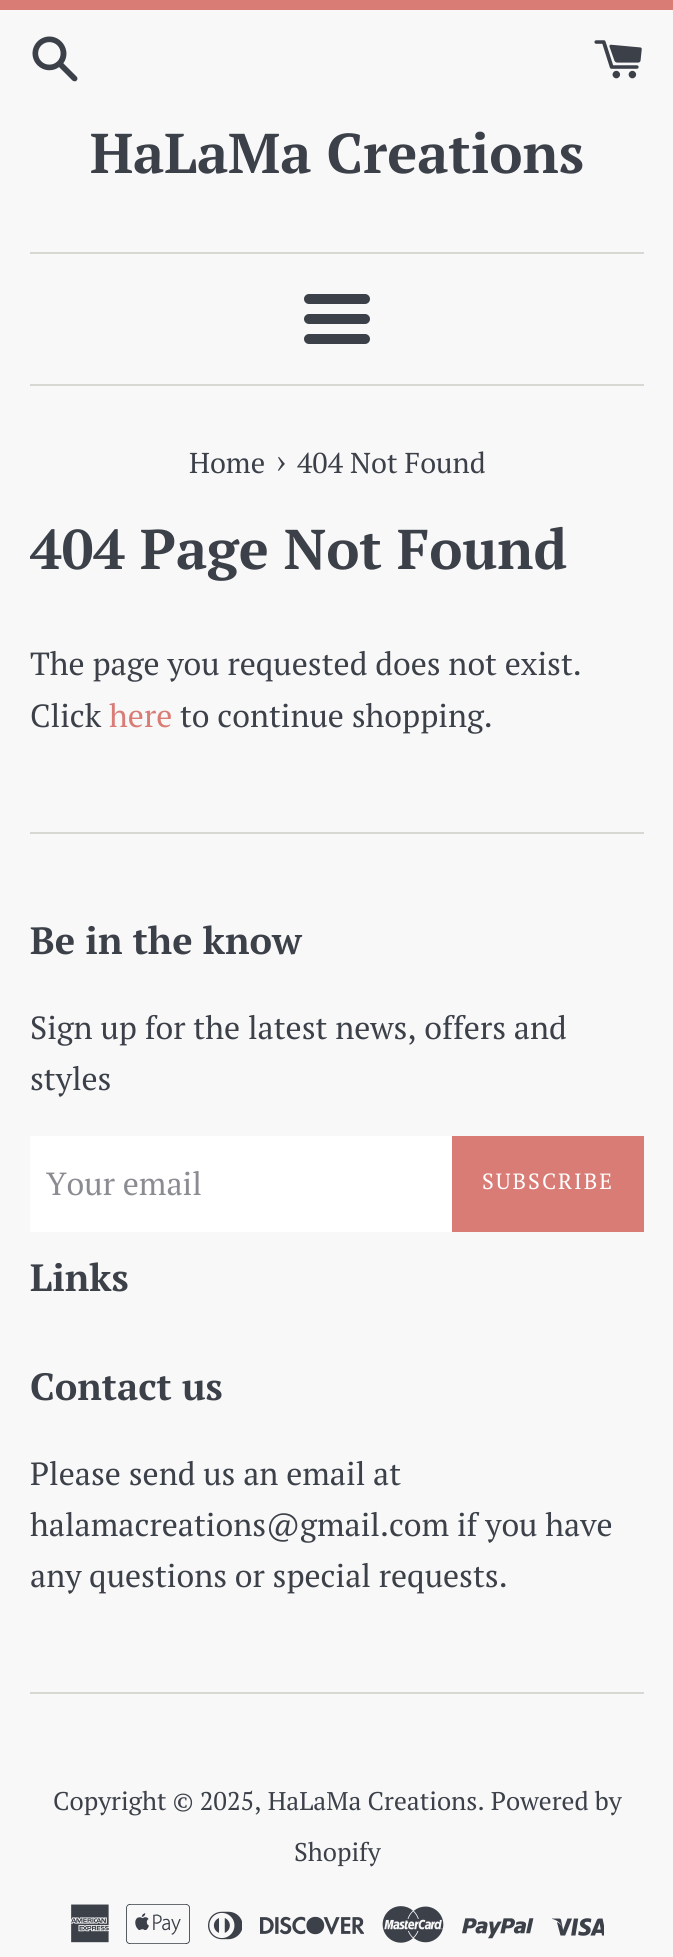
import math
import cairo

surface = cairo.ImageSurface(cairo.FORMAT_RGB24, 673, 1957)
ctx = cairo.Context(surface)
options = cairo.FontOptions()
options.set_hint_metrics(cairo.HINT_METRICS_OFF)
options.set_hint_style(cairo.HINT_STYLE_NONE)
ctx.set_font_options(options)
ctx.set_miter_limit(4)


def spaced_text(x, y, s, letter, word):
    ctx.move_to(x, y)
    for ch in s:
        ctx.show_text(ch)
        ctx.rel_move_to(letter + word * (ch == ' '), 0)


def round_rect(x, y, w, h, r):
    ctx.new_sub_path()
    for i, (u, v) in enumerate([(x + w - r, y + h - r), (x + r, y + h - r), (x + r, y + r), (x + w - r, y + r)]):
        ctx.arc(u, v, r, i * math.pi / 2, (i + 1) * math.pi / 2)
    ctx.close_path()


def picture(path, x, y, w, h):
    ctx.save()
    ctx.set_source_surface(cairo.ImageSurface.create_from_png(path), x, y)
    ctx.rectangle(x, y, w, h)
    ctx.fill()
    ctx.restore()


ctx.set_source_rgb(0.969, 0.969, 0.969)
ctx.paint()
ctx.set_source_rgb(0.851, 0.486, 0.463)
ctx.rectangle(0, 0, 673, 10)
ctx.fill()
picture("img1.png", 32, 36, 46, 46)
picture("img2.png", 594, 40, 48, 39)
ctx.select_font_face("PT Serif", cairo.FONT_SLANT_NORMAL, cairo.FONT_WEIGHT_BOLD)
ctx.set_font_size(56)
ctx.set_source_rgb(0.235, 0.251, 0.286)
ctx.move_to(90, 173)
ctx.show_text("HaLaMa Creations")
ctx.set_source_rgb(0.843, 0.847, 0.824)
ctx.rectangle(30, 252, 614, 2)
ctx.fill()
ctx.set_source_rgb(0.235, 0.251, 0.286)
round_rect(304, 294, 66, 10, 5)
ctx.fill()
round_rect(304, 314, 66, 10, 5)
ctx.fill()
round_rect(304, 334, 66, 10, 5)
ctx.fill()
ctx.set_source_rgb(0.843, 0.847, 0.824)
ctx.rectangle(30, 384, 614, 2)
ctx.fill()
ctx.select_font_face("PT Serif")
ctx.set_font_size(28.75)
ctx.set_source_rgb(0.235, 0.251, 0.286)
ctx.move_to(189, 473)
ctx.show_text("Home")
ctx.set_font_size(35)
ctx.move_to(276, 473)
ctx.show_text("›")
ctx.set_font_size(28.75)
ctx.move_to(297, 473)
ctx.show_text("404 Not Found")
ctx.select_font_face("PT Serif", cairo.FONT_SLANT_NORMAL, cairo.FONT_WEIGHT_BOLD)
ctx.set_font_size(56)
ctx.move_to(30, 569)
ctx.show_text("404 Page Not Found")
ctx.select_font_face("PT Serif")
ctx.set_font_size(32)
ctx.move_to(30, 675)
ctx.show_text("The page you requested does not exist.")
ctx.move_to(30, 727)
ctx.show_text("Click")
ctx.set_source_rgb(0.851, 0.486, 0.463)
ctx.move_to(109, 727)
ctx.show_text("here")
ctx.set_source_rgb(0.235, 0.251, 0.286)
ctx.move_to(180, 727)
ctx.show_text("to continue shopping.")
ctx.set_source_rgb(0.843, 0.847, 0.824)
ctx.rectangle(30, 832, 614, 2)
ctx.fill()
ctx.select_font_face("PT Serif", cairo.FONT_SLANT_NORMAL, cairo.FONT_WEIGHT_BOLD)
ctx.set_font_size(38)
ctx.set_source_rgb(0.235, 0.251, 0.286)
ctx.move_to(30, 954)
ctx.show_text("Be in the know")
ctx.select_font_face("PT Serif")
ctx.set_font_size(32)
ctx.move_to(30, 1039)
ctx.show_text("Sign up for the latest news, offers and")
ctx.move_to(30, 1090)
ctx.show_text("styles")
ctx.set_source_rgb(1, 1, 1)
ctx.rectangle(30, 1136, 422, 96)
ctx.fill()
ctx.set_source_rgb(0.541, 0.549, 0.573)
ctx.move_to(46, 1195)
ctx.show_text("Your email")
ctx.set_source_rgb(0.851, 0.486, 0.463)
ctx.rectangle(452, 1136, 192, 96)
ctx.fill()
ctx.set_font_size(22)
ctx.set_source_rgb(1, 1, 1)
spaced_text(482, 1189, "SUBSCRIBE", 2, 0)
ctx.select_font_face("PT Serif", cairo.FONT_SLANT_NORMAL, cairo.FONT_WEIGHT_BOLD)
ctx.set_font_size(38)
ctx.set_source_rgb(0.235, 0.251, 0.286)
ctx.move_to(30, 1291)
ctx.show_text("Links")
ctx.move_to(30, 1400)
ctx.show_text("Contact us")
ctx.select_font_face("PT Serif")
ctx.set_font_size(32)
ctx.move_to(30, 1485)
ctx.show_text("Please send us an email at")
ctx.move_to(30, 1536)
ctx.show_text("halamacreations@gmail.com if you have")
ctx.move_to(30, 1587)
ctx.show_text("any questions or special requests.")
ctx.set_source_rgb(0.843, 0.847, 0.824)
ctx.rectangle(30, 1692, 614, 2)
ctx.fill()
ctx.set_font_size(25.6)
ctx.set_source_rgb(0.235, 0.251, 0.286)
ctx.move_to(53, 1810)
ctx.show_text("Copyright © 2025, HaLaMa Creations. Powered by")
ctx.move_to(294, 1861)
ctx.show_text("Shopify")
picture("img3.png", 71, 1904, 38, 39)
picture("img4.png", 126, 1904, 64, 40)
picture("img5.png", 208, 1911, 34, 29)
picture("img6.png", 260, 1916, 104, 19)
picture("img7.png", 382, 1906, 62, 37)
picture("img8.png", 462, 1918, 72, 21)
picture("img9.png", 552, 1918, 52, 18)
surface.write_to_png("page.png")
